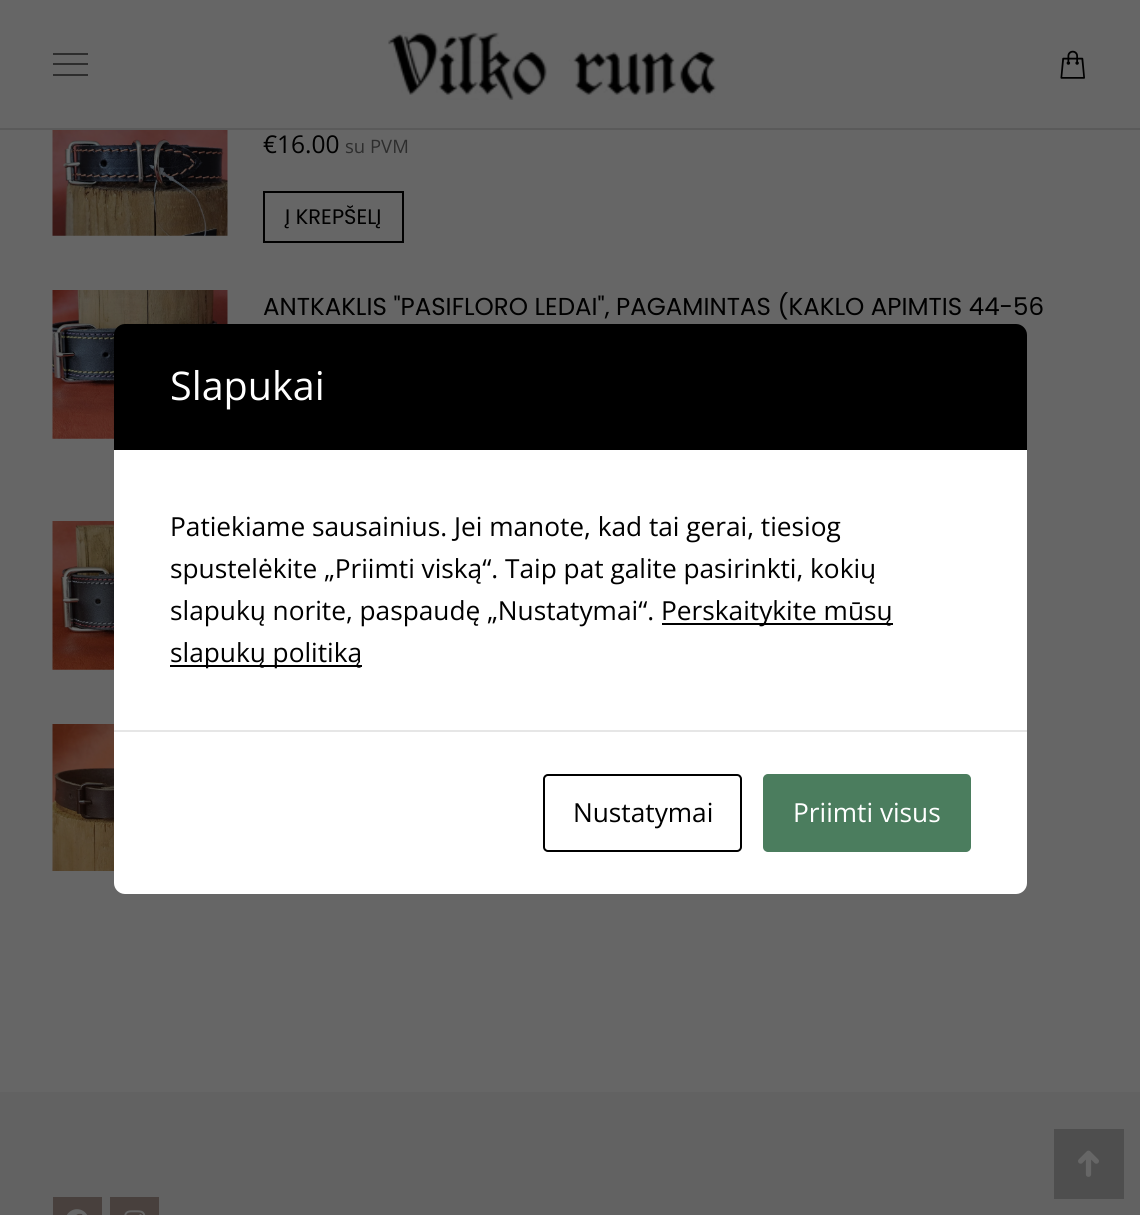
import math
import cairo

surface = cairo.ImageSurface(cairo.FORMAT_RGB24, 1140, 1215)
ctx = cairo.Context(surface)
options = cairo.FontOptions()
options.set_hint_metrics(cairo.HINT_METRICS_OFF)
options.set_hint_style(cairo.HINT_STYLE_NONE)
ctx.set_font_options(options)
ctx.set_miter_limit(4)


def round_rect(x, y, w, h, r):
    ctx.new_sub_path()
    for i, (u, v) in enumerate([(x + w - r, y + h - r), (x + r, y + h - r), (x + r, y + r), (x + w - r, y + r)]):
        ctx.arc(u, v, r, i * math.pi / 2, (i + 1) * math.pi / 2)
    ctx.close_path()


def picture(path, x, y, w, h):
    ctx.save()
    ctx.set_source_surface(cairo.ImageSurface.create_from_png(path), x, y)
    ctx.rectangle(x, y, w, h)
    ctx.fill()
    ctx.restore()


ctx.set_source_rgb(0.4, 0.4, 0.4)
ctx.paint()
ctx.set_source_rgb(0.353, 0.353, 0.353)
ctx.rectangle(0, 128, 1140, 2)
ctx.fill()
ctx.set_source_rgb(0.176, 0.176, 0.176)
ctx.rectangle(53, 53, 35, 2)
ctx.fill()
ctx.rectangle(53, 63, 35, 2)
ctx.fill()
ctx.rectangle(53, 74, 35, 2)
ctx.fill()
picture("img1.png", 388, 32, 329, 68)
picture("img2.png", 1060, 50, 25, 29)
picture("img3.png", 52, 130, 176, 106)
ctx.select_font_face("Open Sans")
ctx.set_font_size(24.5)
ctx.set_source_rgb(0, 0, 0)
ctx.move_to(263, 153)
ctx.show_text("€16.00")
ctx.set_font_size(18.5)
ctx.set_source_rgb(0.176, 0.176, 0.176)
ctx.move_to(345, 153)
ctx.show_text("su PVM")
ctx.rectangle(264, 192, 139, 50)
ctx.set_source_rgb(0, 0, 0)
ctx.stroke()
ctx.select_font_face("Poppins")
ctx.set_font_size(21)
ctx.move_to(285, 224)
ctx.show_text("Į KREPŠELĮ")
picture("img4.png", 52, 290, 176, 149)
ctx.set_font_size(24.5)
ctx.move_to(263, 315)
ctx.show_text("ANTKAKLIS \"PASIFLORO LEDAI\", PAGAMINTAS (KAKLO APIMTIS 44-56")
picture("img5.png", 52, 521, 62, 149)
picture("img6.png", 52, 724, 62, 147)
ctx.set_source_rgb(0.384, 0.384, 0.384)
ctx.rectangle(0, 1092, 1140, 123)
ctx.fill()
ctx.set_source_rgb(0.282, 0.251, 0.239)
ctx.rectangle(53, 1197, 49, 18)
ctx.fill()
picture("img7.png", 67, 1209, 20, 6)
ctx.rectangle(110, 1197, 49, 18)
ctx.fill()
picture("img8.png", 124, 1210, 22, 5)
ctx.set_source_rgb(0.306, 0.306, 0.306)
ctx.rectangle(1054, 1129, 70, 70)
ctx.fill()
picture("img9.png", 1078, 1150, 21, 27)
ctx.set_source_rgb(0, 0, 0)
ctx.new_path()
ctx.move_to(125, 324)
ctx.line_to(1016, 324)
ctx.curve_to(1022, 324, 1027, 329, 1027, 335)
ctx.line_to(1027, 450)
ctx.line_to(114, 450)
ctx.line_to(114, 335)
ctx.curve_to(114, 329, 119, 324, 125, 324)
ctx.close_path()
ctx.fill()
ctx.select_font_face("Open Sans")
ctx.set_font_size(39.5)
ctx.set_source_rgb(1, 1, 1)
ctx.move_to(170, 400)
ctx.show_text("Slapukai")
ctx.rectangle(114, 450, 913, 280)
ctx.fill()
ctx.set_font_size(26.25)
ctx.set_source_rgb(0, 0, 0)
ctx.move_to(170, 536)
ctx.show_text("Patiekiame sausainius. Jei manote, kad tai gerai, tiesiog")
ctx.move_to(170, 578)
ctx.show_text("spustelėkite „Priimti viską“. Taip pat galite pasirinkti, kokių")
ctx.move_to(170, 620)
ctx.show_text("slapukų norite, paspaudę „Nustatymai“.")
ctx.rectangle(662, 623, 231, 2)
ctx.fill()
ctx.move_to(661, 620)
ctx.show_text("Perskaitykite mūsų")
ctx.rectangle(170, 665, 192, 2)
ctx.fill()
ctx.move_to(170, 662)
ctx.show_text("slapukų politiką")
ctx.set_source_rgb(1, 1, 1)
ctx.new_path()
ctx.move_to(114, 730)
ctx.line_to(1027, 730)
ctx.line_to(1027, 883)
ctx.curve_to(1027, 889, 1022, 894, 1016, 894)
ctx.line_to(125, 894)
ctx.curve_to(119, 894, 114, 889, 114, 883)
ctx.close_path()
ctx.fill()
ctx.set_source_rgb(0.902, 0.902, 0.902)
ctx.rectangle(114, 730, 913, 2)
ctx.fill()
round_rect(544, 775, 197, 76, 4)
ctx.set_source_rgb(0, 0, 0)
ctx.stroke()
ctx.move_to(573, 822)
ctx.show_text("Nustatymai")
ctx.set_source_rgb(0.294, 0.49, 0.369)
round_rect(764, 775, 206, 76, 4)
ctx.fill_preserve()
ctx.stroke()
ctx.set_source_rgb(1, 1, 1)
ctx.move_to(793, 822)
ctx.show_text("Priimti visus")
surface.write_to_png("page.png")
